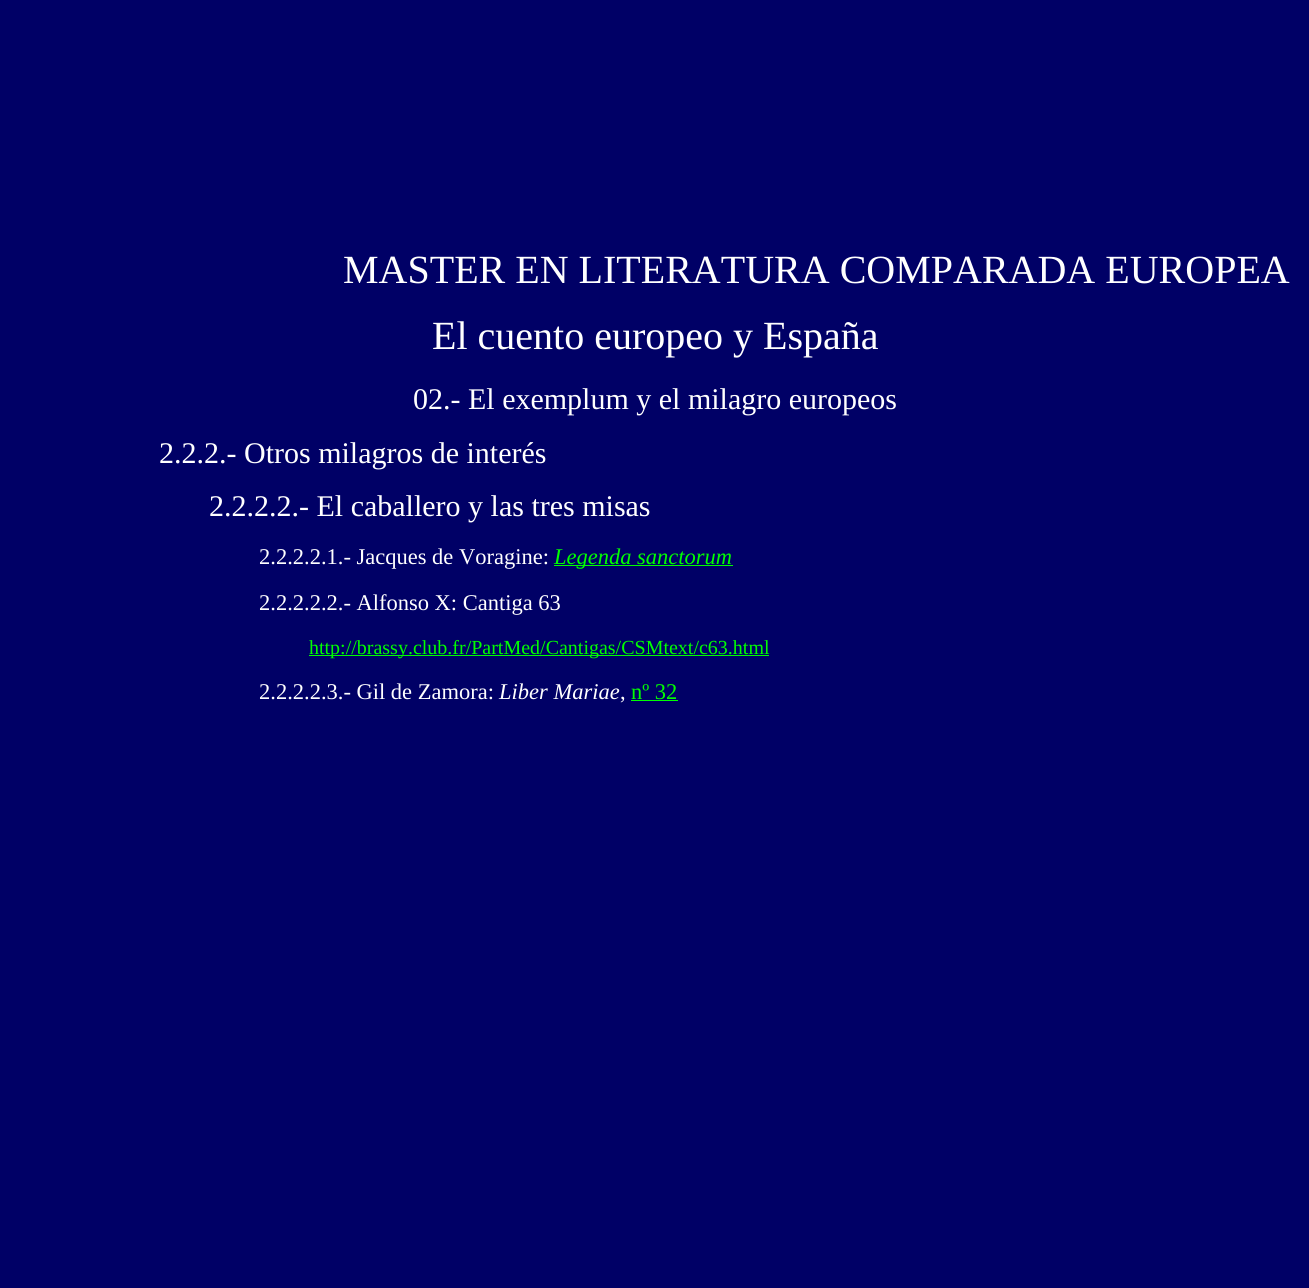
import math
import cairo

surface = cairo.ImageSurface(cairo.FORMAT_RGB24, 1309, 1288)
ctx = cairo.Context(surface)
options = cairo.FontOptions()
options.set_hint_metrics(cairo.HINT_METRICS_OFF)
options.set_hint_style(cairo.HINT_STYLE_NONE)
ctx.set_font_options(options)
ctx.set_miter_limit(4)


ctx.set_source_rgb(0, 0, 0.4)
ctx.paint()
ctx.select_font_face("Liberation Serif")
ctx.set_font_size(40)
ctx.set_source_rgb(1, 1, 1)
ctx.move_to(343, 283)
ctx.show_text("MASTER EN LITERATURA COMPARADA EUROPEA")
ctx.move_to(432, 349)
ctx.show_text("El cuento europeo y España")
ctx.set_font_size(30)
ctx.move_to(413, 409)
ctx.show_text("02.- El exemplum y el milagro europeos")
ctx.move_to(159, 463)
ctx.show_text("2.2.2.- Otros milagros de interés")
ctx.move_to(209, 516)
ctx.show_text("2.2.2.2.- El caballero y las tres misas")
ctx.set_font_size(22.5)
ctx.move_to(259, 564)
ctx.show_text("2.2.2.2.1.- Jacques de Voragine:")
ctx.set_source_rgb(0, 1, 0)
ctx.rectangle(554, 565, 179, 1)
ctx.fill()
ctx.select_font_face("Liberation Serif", cairo.FONT_SLANT_ITALIC)
ctx.move_to(554, 564)
ctx.show_text("Legenda sanctorum")
ctx.select_font_face("Liberation Serif")
ctx.set_source_rgb(1, 1, 1)
ctx.move_to(259, 610)
ctx.show_text("2.2.2.2.2.- Alfonso X: Cantiga 63")
ctx.set_source_rgb(0, 1, 0)
ctx.rectangle(309, 655, 460, 1)
ctx.fill()
ctx.set_font_size(20)
ctx.move_to(309, 654)
ctx.show_text("http://brassy.club.fr/PartMed/Cantigas/CSMtext/c63.html")
ctx.set_font_size(22.5)
ctx.set_source_rgb(1, 1, 1)
ctx.move_to(259, 699)
ctx.show_text("2.2.2.2.3.- Gil de Zamora:")
ctx.select_font_face("Liberation Serif", cairo.FONT_SLANT_ITALIC)
ctx.move_to(499, 699)
ctx.show_text("Liber Mariae")
ctx.select_font_face("Liberation Serif")
ctx.move_to(620, 699)
ctx.show_text(",")
ctx.set_source_rgb(0, 1, 0)
ctx.rectangle(631, 700, 47, 1)
ctx.fill()
ctx.move_to(631, 699)
ctx.show_text("nº 32")
surface.write_to_png("page.png")
